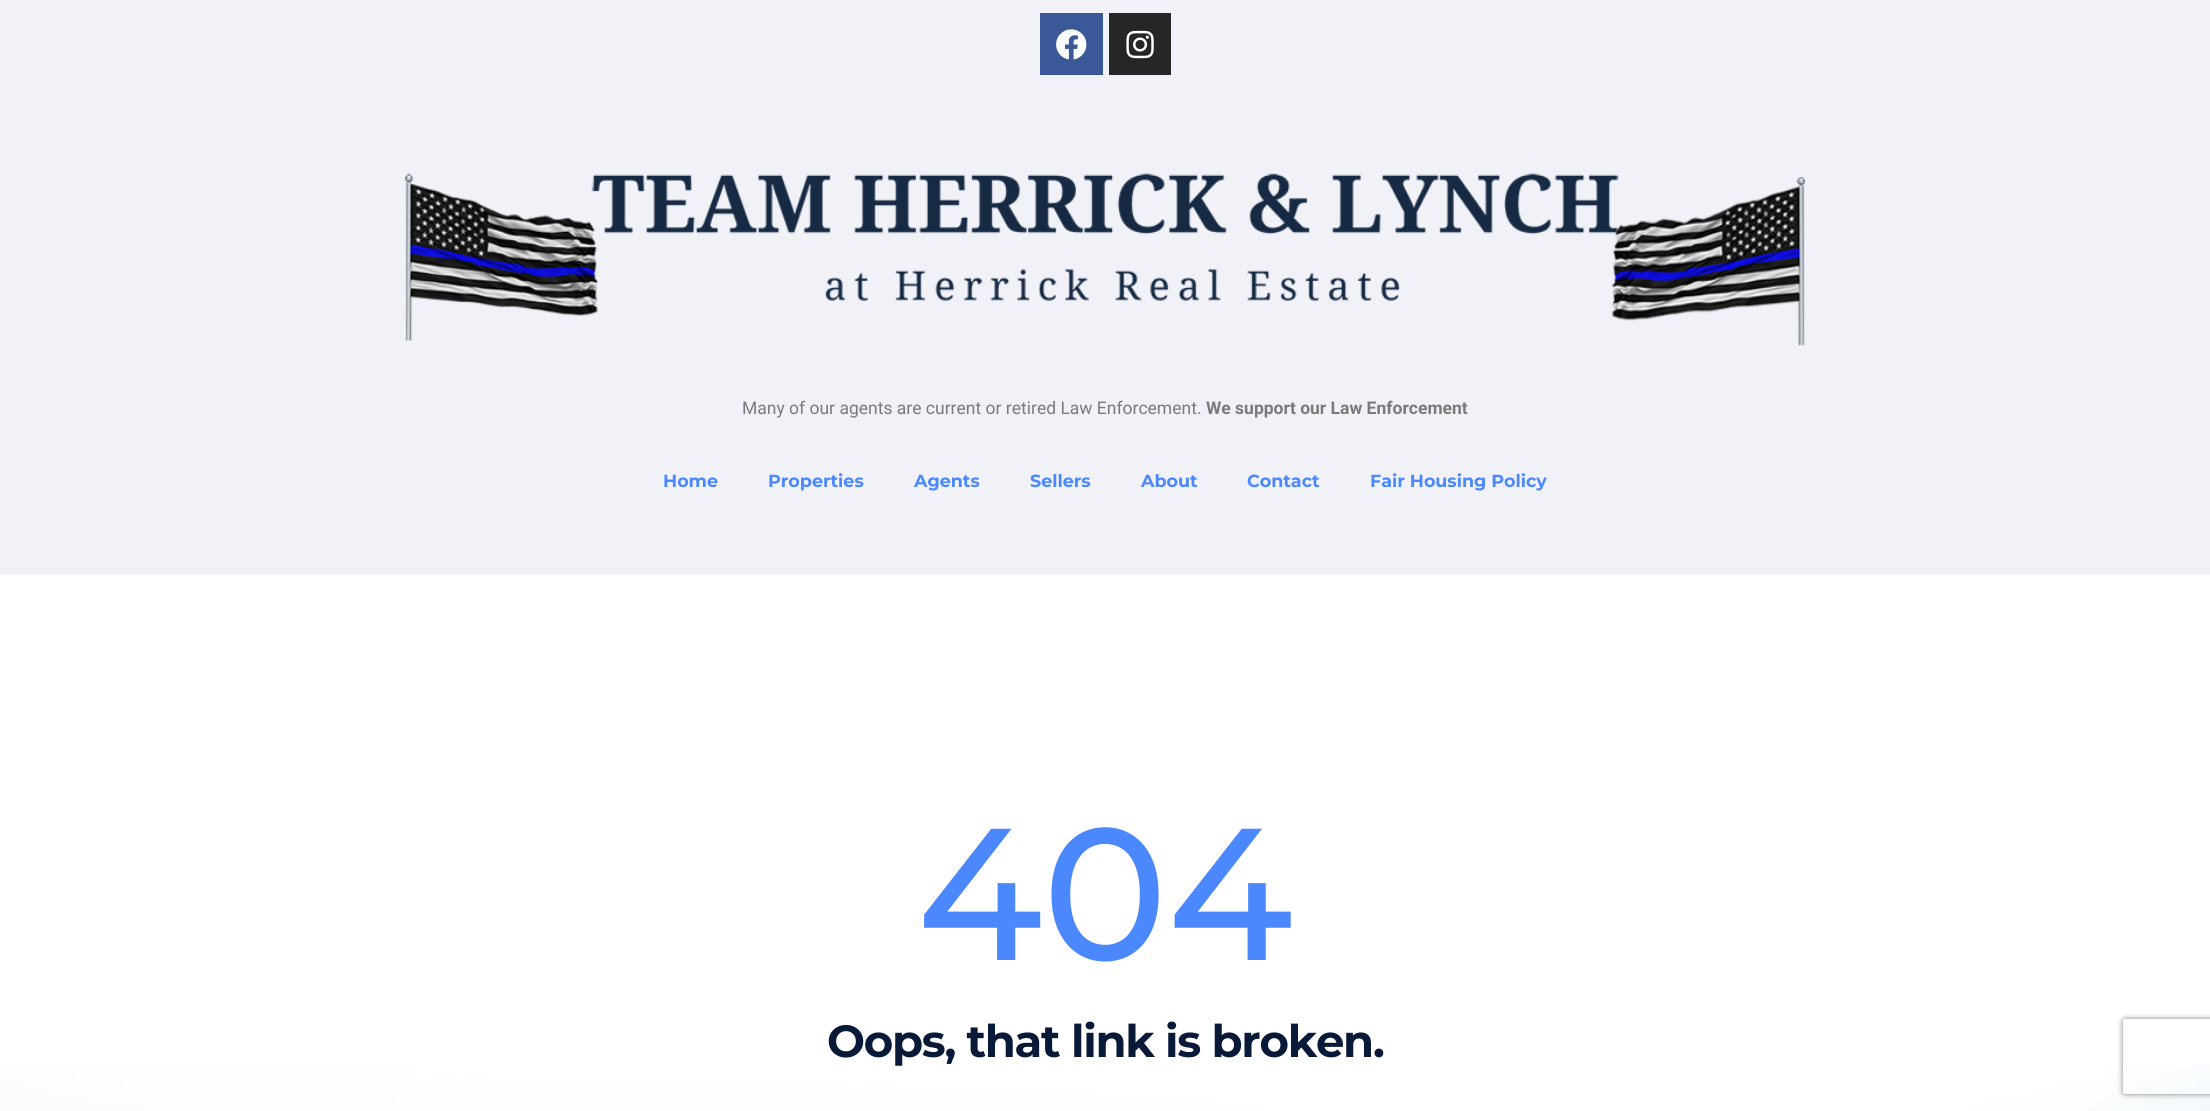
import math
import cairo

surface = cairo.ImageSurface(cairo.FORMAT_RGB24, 2210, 1111)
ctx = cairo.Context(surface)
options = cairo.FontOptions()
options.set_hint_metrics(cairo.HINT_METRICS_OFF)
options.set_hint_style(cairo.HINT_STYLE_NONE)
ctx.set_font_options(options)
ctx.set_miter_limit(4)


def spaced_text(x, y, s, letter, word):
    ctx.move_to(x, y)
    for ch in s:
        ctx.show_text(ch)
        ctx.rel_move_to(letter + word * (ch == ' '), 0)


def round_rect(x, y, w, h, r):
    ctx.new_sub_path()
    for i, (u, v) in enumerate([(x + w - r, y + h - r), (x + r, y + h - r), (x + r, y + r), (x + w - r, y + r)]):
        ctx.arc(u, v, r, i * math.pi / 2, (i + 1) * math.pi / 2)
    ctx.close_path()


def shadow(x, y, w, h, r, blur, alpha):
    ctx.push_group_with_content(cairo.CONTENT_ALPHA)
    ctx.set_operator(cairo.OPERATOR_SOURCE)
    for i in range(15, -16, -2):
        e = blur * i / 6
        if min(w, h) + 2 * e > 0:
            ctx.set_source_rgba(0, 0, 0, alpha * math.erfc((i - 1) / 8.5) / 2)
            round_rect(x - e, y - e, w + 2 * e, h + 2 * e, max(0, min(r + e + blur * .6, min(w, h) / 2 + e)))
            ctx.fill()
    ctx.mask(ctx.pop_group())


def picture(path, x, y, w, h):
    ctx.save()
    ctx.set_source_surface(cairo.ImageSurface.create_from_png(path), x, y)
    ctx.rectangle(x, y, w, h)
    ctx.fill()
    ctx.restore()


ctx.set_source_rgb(1, 1, 1)
ctx.paint()
ctx.set_source_rgb(0.941, 0.949, 0.969)
ctx.rectangle(0, 0, 2210, 575)
ctx.fill()
ctx.set_source_rgb(0.231, 0.349, 0.596)
ctx.rectangle(1040, 13, 63, 62)
ctx.fill()
picture("img1.png", 1056, 29, 31, 31)
ctx.set_source_rgb(0.149, 0.149, 0.149)
ctx.rectangle(1109, 13, 62, 62)
ctx.fill()
picture("img2.png", 1126, 30, 28, 29)
picture("img3.png", 405, 173, 1400, 173)
ctx.select_font_face("Roboto")
ctx.set_font_size(17.5)
ctx.set_source_rgb(0.478, 0.478, 0.478)
ctx.move_to(742, 414)
ctx.show_text("Many of our agents are current or retired Law Enforcement.")
ctx.select_font_face("Roboto", cairo.FONT_SLANT_NORMAL, cairo.FONT_WEIGHT_BOLD)
ctx.move_to(1206, 414)
ctx.show_text("We support our Law Enforcement")
ctx.select_font_face("Montserrat", cairo.FONT_SLANT_NORMAL, cairo.FONT_WEIGHT_BOLD)
ctx.set_source_rgb(0.294, 0.529, 0.992)
ctx.move_to(663, 487)
ctx.show_text("Home")
ctx.move_to(768, 487)
ctx.show_text("Properties")
ctx.move_to(914, 487)
ctx.show_text("Agents")
ctx.move_to(1030, 487)
ctx.show_text("Sellers")
ctx.move_to(1141, 487)
ctx.show_text("About")
ctx.move_to(1247, 487)
ctx.show_text("Contact")
ctx.move_to(1370, 487)
ctx.show_text("Fair Housing Policy")
picture("img4.png", 0, 1065, 2210, 46)
ctx.select_font_face("Montserrat Medium")
ctx.set_font_size(187.5)
ctx.move_to(917, 960)
ctx.show_text("404")
ctx.select_font_face("Montserrat", cairo.FONT_SLANT_NORMAL, cairo.FONT_WEIGHT_BOLD)
ctx.set_font_size(45)
ctx.set_source_rgb(0.039, 0.098, 0.22)
spaced_text(827, 1057, "Oops, that link is broken.", -1.25, 0)
ctx.save()
ctx.set_fill_rule(cairo.FILL_RULE_EVEN_ODD)
ctx.new_path()
ctx.move_to(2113, 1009)
ctx.line_to(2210, 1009)
ctx.line_to(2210, 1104)
ctx.line_to(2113, 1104)
ctx.close_path()
ctx.move_to(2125.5, 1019)
ctx.line_to(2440.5, 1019)
ctx.curve_to(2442, 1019, 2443, 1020, 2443, 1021.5)
ctx.line_to(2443, 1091.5)
ctx.curve_to(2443, 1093, 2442, 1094, 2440.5, 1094)
ctx.line_to(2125.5, 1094)
ctx.curve_to(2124, 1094, 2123, 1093, 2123, 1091.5)
ctx.line_to(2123, 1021.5)
ctx.curve_to(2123, 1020, 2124, 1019, 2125.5, 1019)
ctx.close_path()
ctx.clip()
ctx.set_source_rgb(0.502, 0.502, 0.502)
shadow(2123, 1019, 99, 75, 2.5, 3, 1)
ctx.restore()
surface.write_to_png("page.png")
